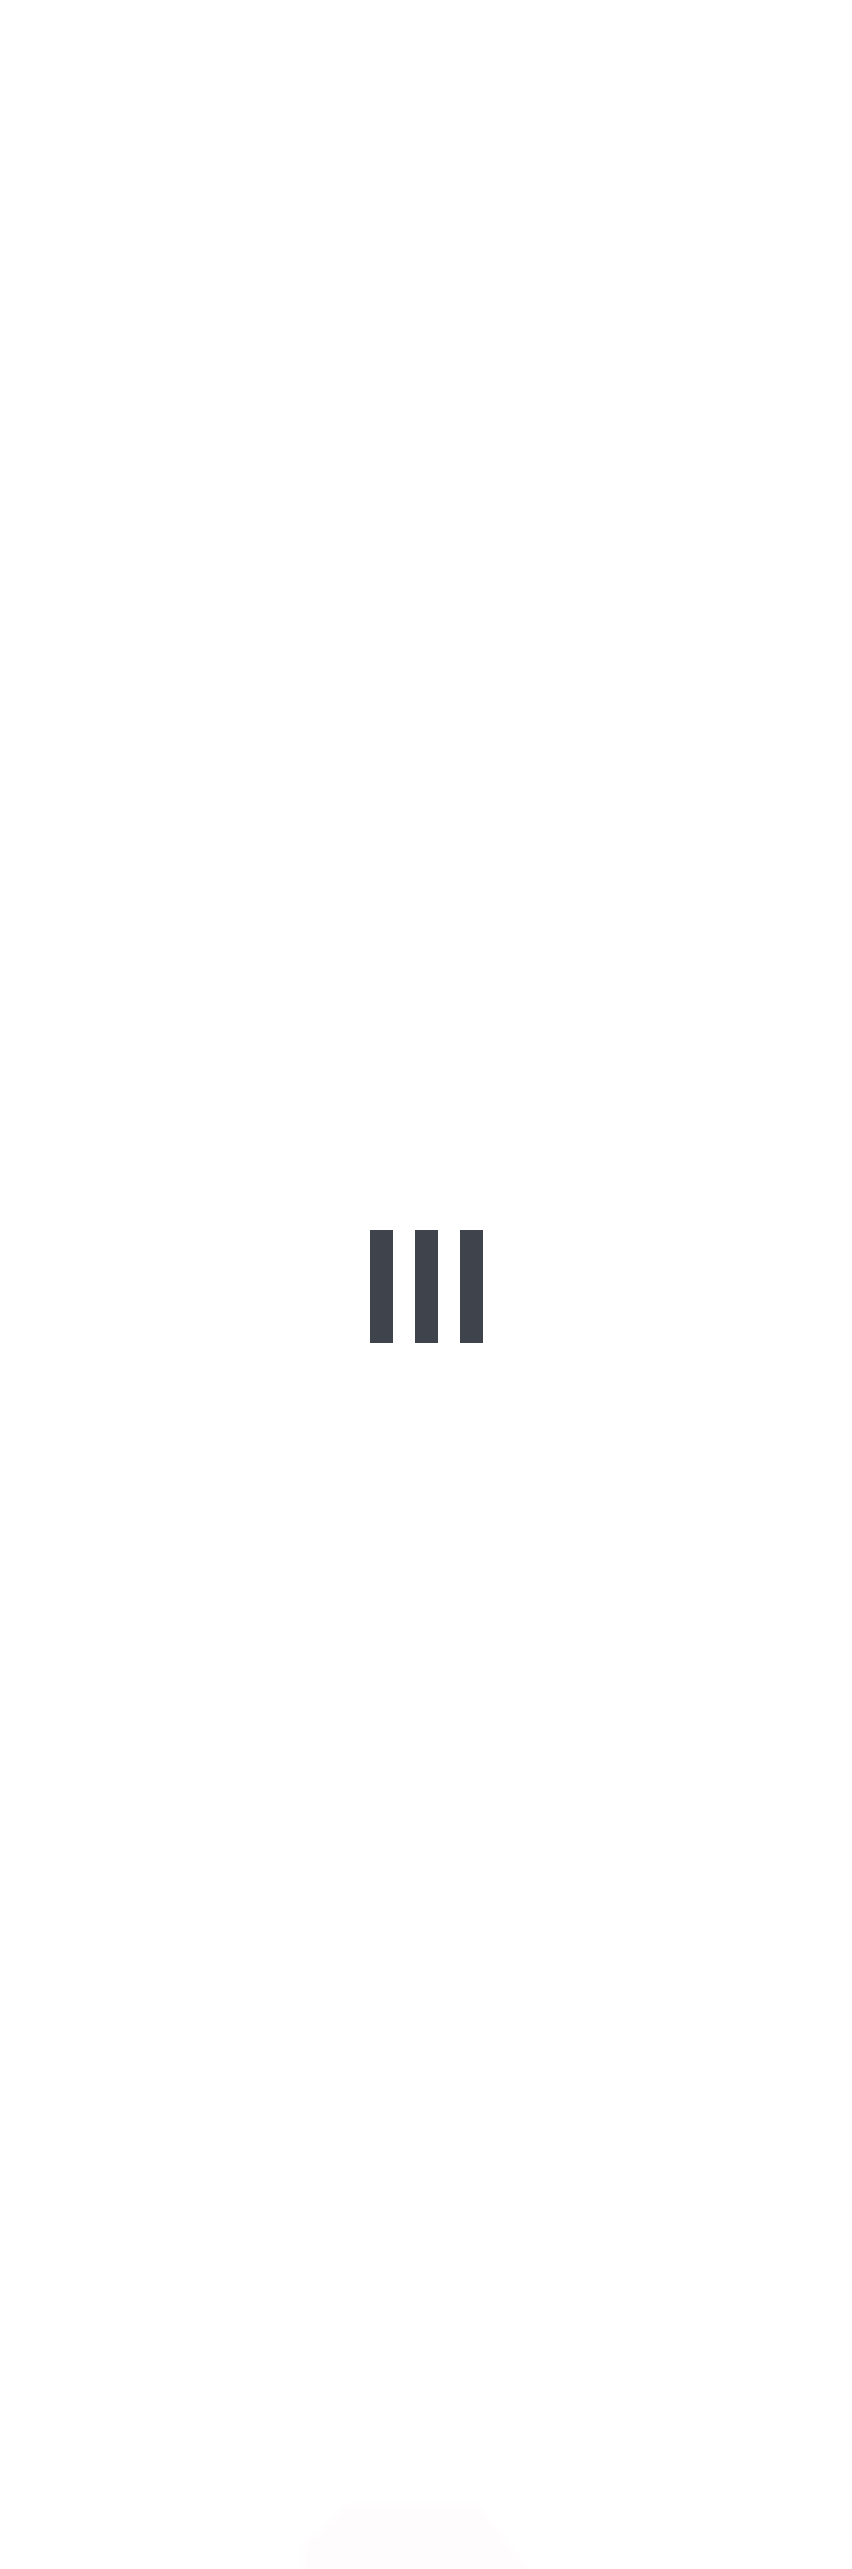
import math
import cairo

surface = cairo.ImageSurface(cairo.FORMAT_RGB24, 852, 2569)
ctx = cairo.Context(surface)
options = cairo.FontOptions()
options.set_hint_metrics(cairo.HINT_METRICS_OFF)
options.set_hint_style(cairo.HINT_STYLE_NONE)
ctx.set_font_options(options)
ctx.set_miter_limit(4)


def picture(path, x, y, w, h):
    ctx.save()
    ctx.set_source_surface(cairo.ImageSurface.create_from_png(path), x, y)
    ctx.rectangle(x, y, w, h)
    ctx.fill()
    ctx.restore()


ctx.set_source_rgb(1, 1, 1)
ctx.paint()
gradient = cairo.LinearGradient(471, 1068, 471, 1343)
gradient.add_color_stop_rgba(0.41, 1, 0.243, 0.243, 1)
gradient.add_color_stop_rgba(0.41, 1, 1, 1, 1)
gradient.add_color_stop_rgba(0.59, 1, 1, 1, 1)
gradient.add_color_stop_rgba(0.59, 0.247, 0.267, 0.298, 1)
ctx.set_source(gradient)
ctx.rectangle(460, 1230, 23, 113)
ctx.fill()
gradient = cairo.LinearGradient(426, 1068, 426, 1343)
gradient.add_color_stop_rgba(0.41, 1, 0.243, 0.243, 1)
gradient.add_color_stop_rgba(0.41, 1, 1, 1, 1)
gradient.add_color_stop_rgba(0.59, 1, 1, 1, 1)
gradient.add_color_stop_rgba(0.59, 0.247, 0.267, 0.298, 1)
ctx.set_source(gradient)
ctx.rectangle(415, 1230, 23, 113)
ctx.fill()
gradient = cairo.LinearGradient(381, 1068, 381, 1343)
gradient.add_color_stop_rgba(0.41, 1, 0.243, 0.243, 1)
gradient.add_color_stop_rgba(0.41, 1, 1, 1, 1)
gradient.add_color_stop_rgba(0.59, 1, 1, 1, 1)
gradient.add_color_stop_rgba(0.59, 0.247, 0.267, 0.298, 1)
ctx.set_source(gradient)
ctx.rectangle(370, 1230, 23, 113)
ctx.fill()
picture("img1.png", 103, 2501, 442, 68)
surface.write_to_png("page.png")
